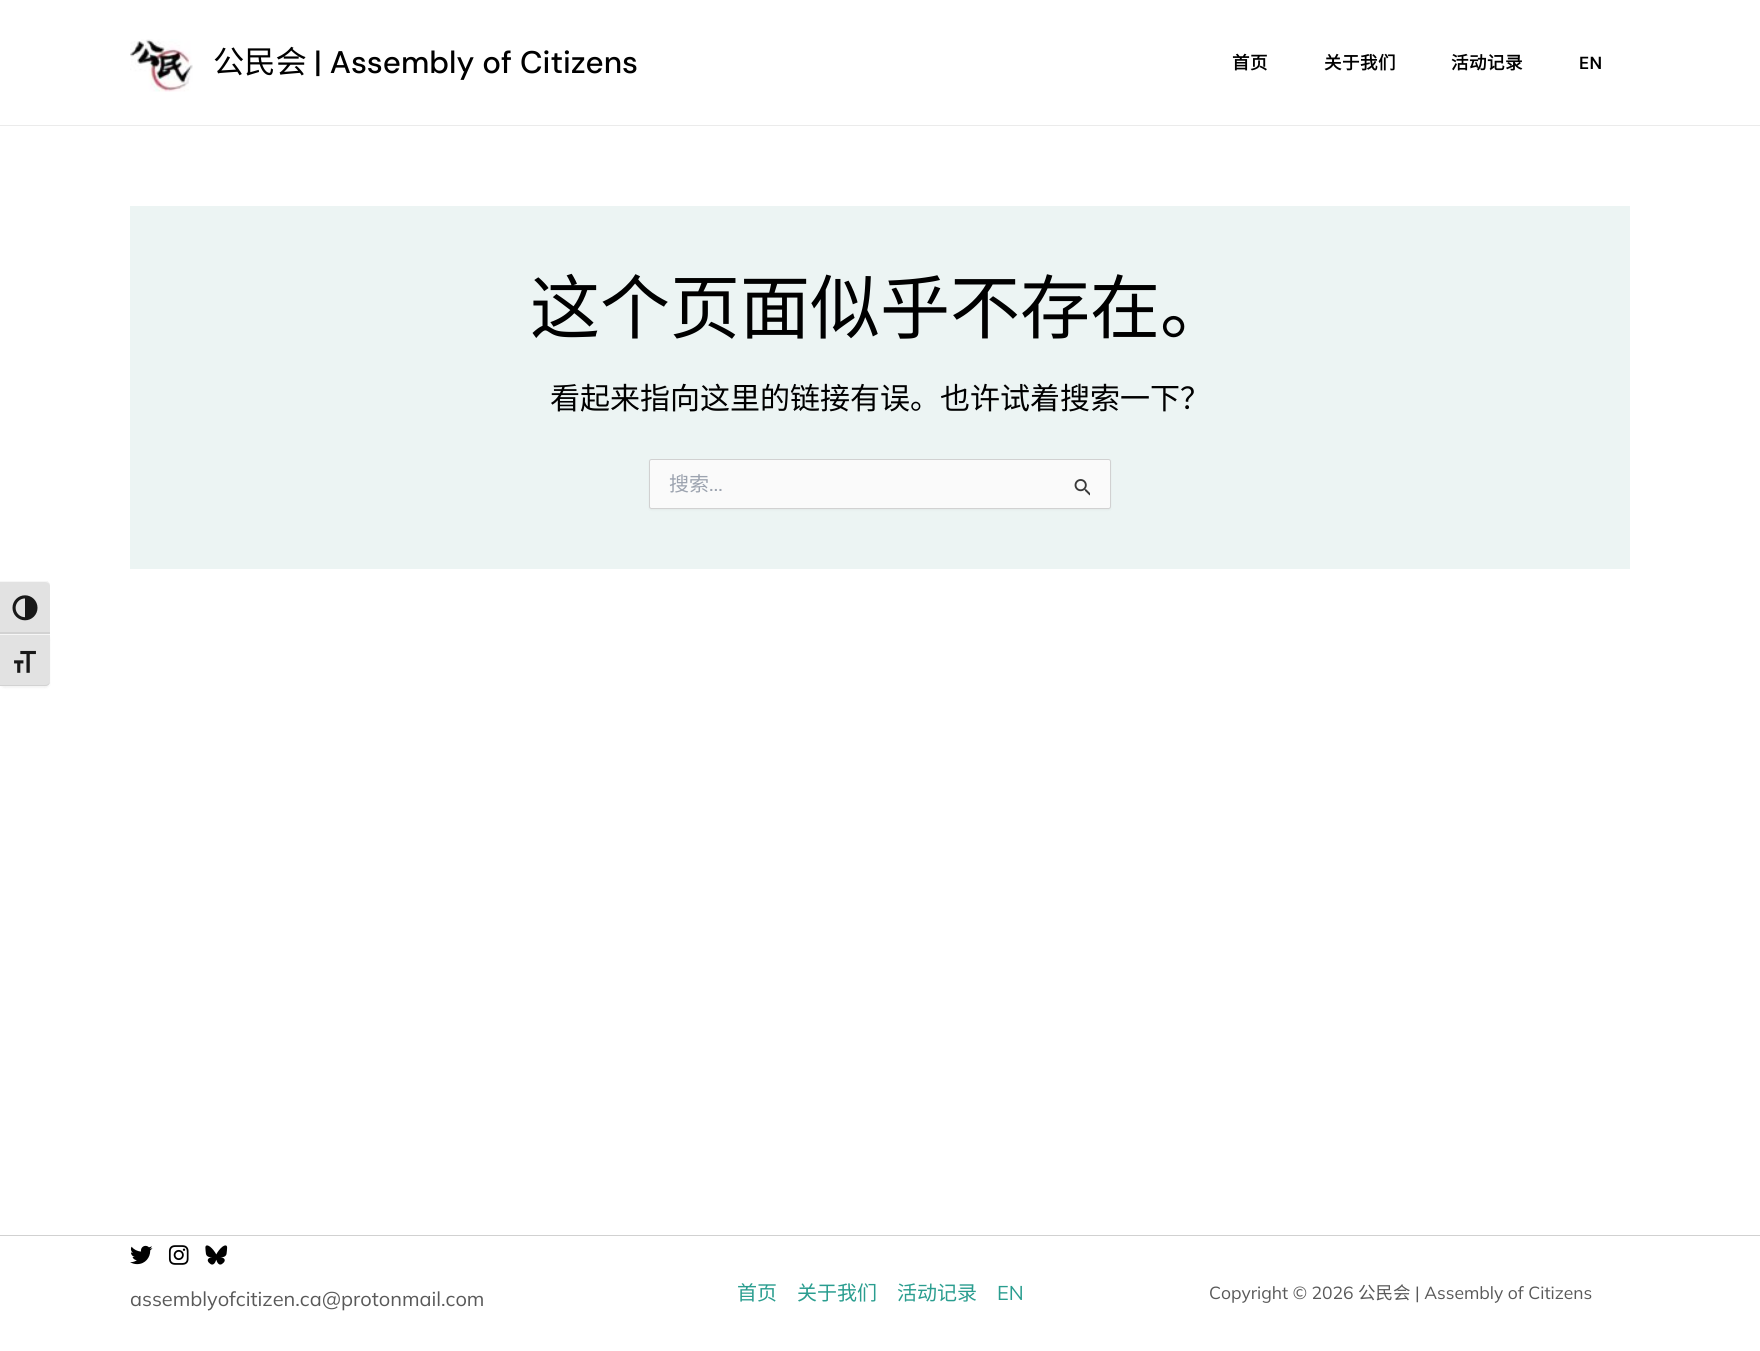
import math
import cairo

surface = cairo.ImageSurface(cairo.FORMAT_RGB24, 1760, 1351)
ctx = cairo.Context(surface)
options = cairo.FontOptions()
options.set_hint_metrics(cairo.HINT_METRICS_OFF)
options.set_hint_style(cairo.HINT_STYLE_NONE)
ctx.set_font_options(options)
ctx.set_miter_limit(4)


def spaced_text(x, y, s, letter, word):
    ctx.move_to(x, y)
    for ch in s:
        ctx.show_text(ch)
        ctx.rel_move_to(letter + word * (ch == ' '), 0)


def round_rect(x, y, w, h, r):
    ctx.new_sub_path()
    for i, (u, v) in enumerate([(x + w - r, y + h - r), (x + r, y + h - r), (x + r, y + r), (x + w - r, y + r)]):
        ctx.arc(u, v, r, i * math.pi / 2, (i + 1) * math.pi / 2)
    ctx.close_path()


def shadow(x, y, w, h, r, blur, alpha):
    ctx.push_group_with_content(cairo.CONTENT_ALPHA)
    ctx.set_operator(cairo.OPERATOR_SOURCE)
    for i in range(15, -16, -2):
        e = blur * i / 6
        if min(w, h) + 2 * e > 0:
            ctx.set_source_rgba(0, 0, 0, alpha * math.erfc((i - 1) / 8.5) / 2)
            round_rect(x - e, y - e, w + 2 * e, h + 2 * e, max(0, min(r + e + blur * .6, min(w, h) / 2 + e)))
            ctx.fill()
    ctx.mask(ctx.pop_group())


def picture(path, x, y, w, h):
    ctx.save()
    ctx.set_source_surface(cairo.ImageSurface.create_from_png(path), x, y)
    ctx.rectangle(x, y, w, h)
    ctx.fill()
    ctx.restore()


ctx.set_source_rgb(1, 1, 1)
ctx.paint()
ctx.set_source_rgb(0.886, 0.886, 0.886)
ctx.new_path()
ctx.move_to(0, 581)
ctx.line_to(45, 581)
ctx.curve_to(48, 581, 50, 583, 50, 586)
ctx.line_to(50, 634)
ctx.line_to(0, 634)
ctx.close_path()
ctx.fill()
ctx.set_source_rgb(0.961, 0.961, 0.961)
ctx.new_path()
ctx.move_to(0, 582)
ctx.line_to(45, 582)
ctx.curve_to(48, 582, 50, 584, 50, 586)
ctx.curve_to(50, 584, 49, 582, 47, 581)
ctx.line_to(0, 581)
ctx.close_path()
ctx.fill()
ctx.set_source_rgb(0.824, 0.824, 0.824)
ctx.rectangle(0, 632, 50, 2)
ctx.fill()
picture("img1.png", 12, 595, 26, 26)
ctx.set_source_rgb(0, 0, 0)
shadow(0, 635, 50, 53, 5, 1, 0.05)
ctx.set_source_rgb(0.886, 0.886, 0.886)
ctx.new_path()
ctx.move_to(0, 634)
ctx.line_to(50, 634)
ctx.line_to(50, 681)
ctx.curve_to(50, 684, 48, 686, 45, 686)
ctx.line_to(0, 686)
ctx.close_path()
ctx.fill()
ctx.set_source_rgb(0.961, 0.961, 0.961)
ctx.rectangle(0, 634, 50, 1)
ctx.fill()
ctx.set_source_rgb(0.824, 0.824, 0.824)
ctx.new_path()
ctx.move_to(0, 685)
ctx.line_to(0, 686)
ctx.line_to(45, 686)
ctx.curve_to(48, 686, 50, 684, 50, 681)
ctx.curve_to(50, 683, 48, 685, 45, 685)
ctx.close_path()
ctx.fill()
picture("img2.png", 14, 650, 22, 23)
ctx.set_source_rgb(0.918, 0.918, 0.918)
ctx.rectangle(0, 125, 1760, 1)
ctx.fill()
picture("img3.png", 130, 39, 63, 53)
ctx.select_font_face("Noto Sans CJK SC")
ctx.set_font_size(31.25)
ctx.set_source_rgb(0, 0, 0)
ctx.move_to(213, 73)
ctx.show_text("公民会")
ctx.select_font_face("DM Sans Medium")
ctx.move_to(314, 73)
ctx.show_text("| Assembly of Citizens")
ctx.select_font_face("Noto Sans CJK SC", cairo.FONT_SLANT_NORMAL, cairo.FONT_WEIGHT_BOLD)
ctx.set_font_size(17.5)
spaced_text(1232, 69, "首页", 0.5, 0)
spaced_text(1324, 69, "关于我们", 0.5, 0)
spaced_text(1451, 69, "活动记录", 0.5, 0)
ctx.select_font_face("DM Sans SemiBold")
spaced_text(1579, 69, "EN", 0.5, 0)
ctx.set_source_rgb(0.925, 0.957, 0.953)
ctx.rectangle(130, 206, 1500, 363)
ctx.fill()
ctx.select_font_face("Noto Sans CJK SC")
ctx.set_font_size(70)
ctx.set_source_rgb(0, 0, 0)
ctx.move_to(530, 333)
ctx.show_text("这个页面似乎不存在。")
ctx.set_font_size(30)
ctx.move_to(550, 409)
ctx.show_text("看起来指向这里的链接有误。也许试着搜索一下？")
ctx.set_source_rgb(0, 0, 0)
shadow(649, 460, 462, 50, 2.5, 1, 0.05)
ctx.set_source_rgb(0.98, 0.98, 0.98)
round_rect(649.5, 459.5, 461, 49, 2)
ctx.fill_preserve()
ctx.set_source_rgb(0.82, 0.82, 0.82)
ctx.set_line_width(1)
ctx.stroke()
ctx.set_font_size(20)
ctx.set_source_rgb(0.612, 0.639, 0.686)
ctx.move_to(669, 491)
ctx.show_text("搜索")
ctx.select_font_face("Mulish")
ctx.move_to(709, 491)
ctx.show_text("…")
picture("img4.png", 1074, 479, 16, 17)
ctx.set_source_rgb(0.82, 0.82, 0.82)
ctx.rectangle(0, 1235, 1760, 1)
ctx.fill()
picture("img5.png", 130, 1245, 23, 20)
picture("img6.png", 168, 1245, 21, 20)
picture("img7.png", 205, 1245, 23, 20)
ctx.set_source_rgb(0.349, 0.349, 0.349)
ctx.move_to(130, 1306)
ctx.show_text("assemblyofcitizen.ca@protonmail.com")
ctx.select_font_face("Noto Sans CJK SC")
ctx.set_source_rgb(0.165, 0.616, 0.561)
ctx.move_to(737, 1300)
ctx.show_text("首页")
ctx.move_to(797, 1300)
ctx.show_text("关于我们")
ctx.move_to(897, 1300)
ctx.show_text("活动记录")
ctx.select_font_face("Mulish")
ctx.move_to(997, 1300)
ctx.show_text("EN")
ctx.set_font_size(17.5)
ctx.set_source_rgb(0.349, 0.349, 0.349)
ctx.move_to(1209, 1299)
ctx.show_text("Copyright © 2026")
ctx.select_font_face("Noto Sans CJK SC")
ctx.move_to(1358, 1299)
ctx.show_text("公民会")
ctx.select_font_face("Mulish")
ctx.move_to(1415, 1299)
ctx.show_text("| Assembly of Citizens")
surface.write_to_png("page.png")
